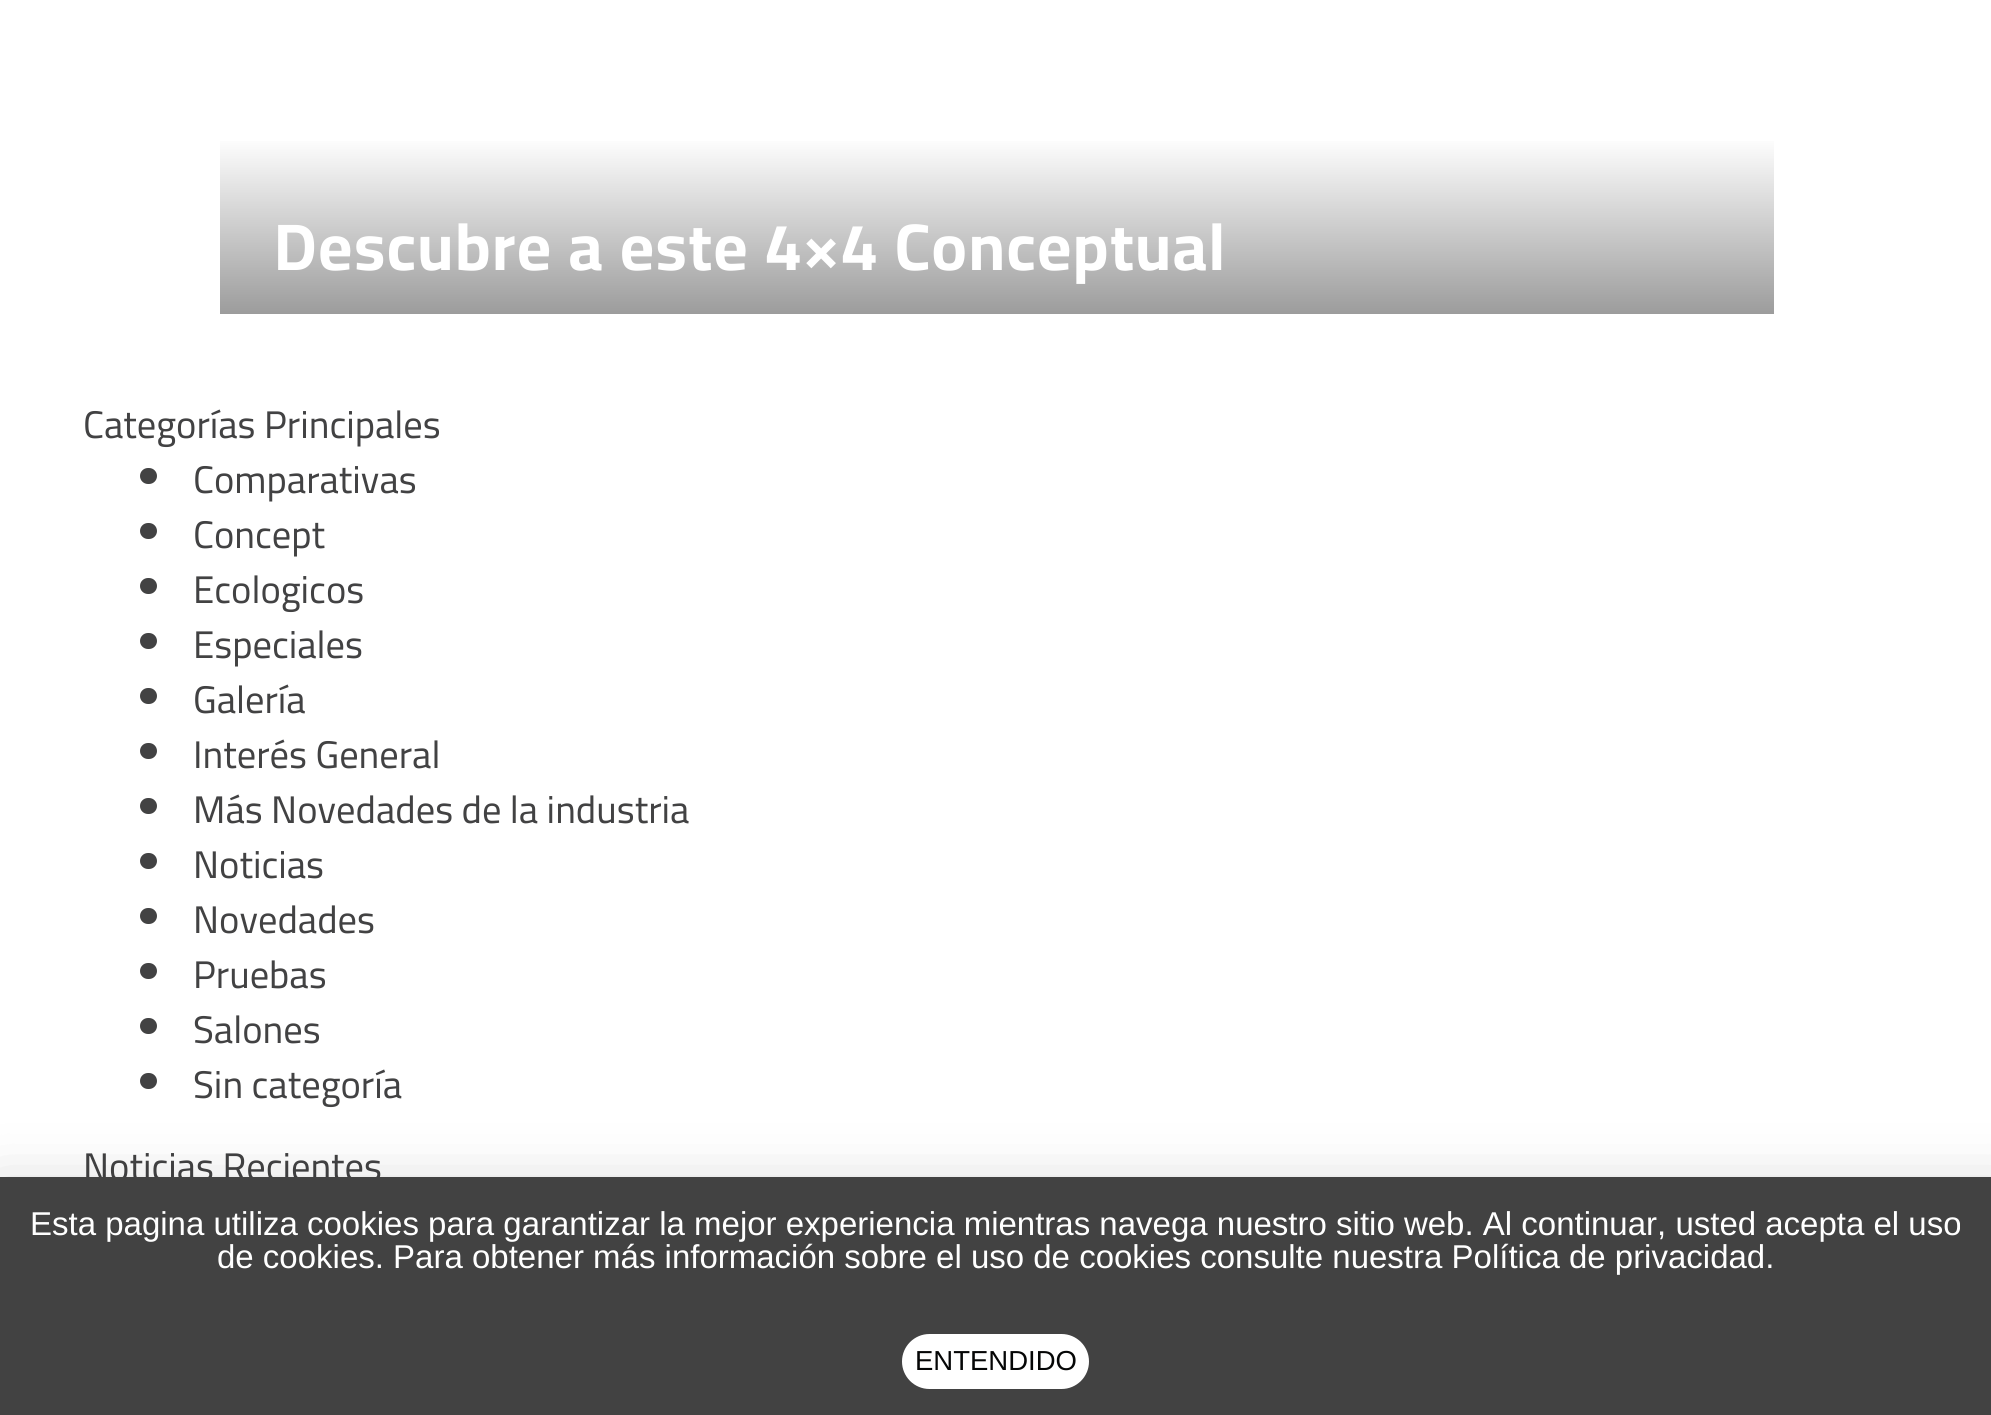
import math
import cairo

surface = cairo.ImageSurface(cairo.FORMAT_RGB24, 1991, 1415)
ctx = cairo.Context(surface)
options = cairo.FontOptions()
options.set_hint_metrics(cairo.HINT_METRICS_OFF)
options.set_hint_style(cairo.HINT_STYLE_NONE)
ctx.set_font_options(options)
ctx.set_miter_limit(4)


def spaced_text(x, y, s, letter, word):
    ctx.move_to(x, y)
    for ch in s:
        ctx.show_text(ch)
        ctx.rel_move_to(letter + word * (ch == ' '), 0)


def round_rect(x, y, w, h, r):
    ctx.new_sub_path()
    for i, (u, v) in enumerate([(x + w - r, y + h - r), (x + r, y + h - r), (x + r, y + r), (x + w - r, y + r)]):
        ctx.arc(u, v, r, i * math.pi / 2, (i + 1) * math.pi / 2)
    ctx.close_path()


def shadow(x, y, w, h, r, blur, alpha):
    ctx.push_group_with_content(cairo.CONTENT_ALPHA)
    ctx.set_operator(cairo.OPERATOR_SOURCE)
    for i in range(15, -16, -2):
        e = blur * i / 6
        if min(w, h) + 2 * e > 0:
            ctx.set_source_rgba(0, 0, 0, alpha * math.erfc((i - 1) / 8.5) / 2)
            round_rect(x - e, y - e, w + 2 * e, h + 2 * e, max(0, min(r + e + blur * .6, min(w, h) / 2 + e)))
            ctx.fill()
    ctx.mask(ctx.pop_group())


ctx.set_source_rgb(1, 1, 1)
ctx.paint()
gradient = cairo.LinearGradient(997, 137, 997, 314)
gradient.add_color_stop_rgba(0, 1, 1, 1, 1)
gradient.add_color_stop_rgba(1, 0.612, 0.612, 0.612, 1)
ctx.set_source(gradient)
ctx.rectangle(220, 141, 1554, 173)
ctx.fill()
ctx.select_font_face("Cairo", cairo.FONT_SLANT_NORMAL, cairo.FONT_WEIGHT_BOLD)
ctx.set_font_size(66)
ctx.set_source_rgb(1, 1, 1)
spaced_text(274, 270, "Descubre a este 4×4 Conceptual", 1.3, 0)
ctx.select_font_face("Cairo")
ctx.set_font_size(38.5)
ctx.set_source_rgb(0.259, 0.259, 0.263)
ctx.move_to(83, 438)
ctx.show_text("Categorías Principales")
round_rect(140, 468, 17, 16, 8)
ctx.fill()
ctx.move_to(193, 493)
ctx.show_text("Comparativas")
round_rect(140, 523, 17, 16, 8)
ctx.fill()
ctx.move_to(193, 548)
ctx.show_text("Concept")
round_rect(140, 578, 17, 16, 8)
ctx.fill()
ctx.move_to(193, 603)
ctx.show_text("Ecologicos")
round_rect(140, 633, 17, 16, 8)
ctx.fill()
ctx.move_to(193, 658)
ctx.show_text("Especiales")
round_rect(140, 688, 17, 16, 8)
ctx.fill()
ctx.move_to(193, 713)
ctx.show_text("Galería")
round_rect(140, 743, 17, 16, 8)
ctx.fill()
ctx.move_to(193, 768)
ctx.show_text("Interés General")
round_rect(140, 798, 17, 16, 8)
ctx.fill()
ctx.move_to(193, 823)
ctx.show_text("Más Novedades de la industria")
round_rect(140, 853, 17, 16, 8)
ctx.fill()
ctx.move_to(193, 878)
ctx.show_text("Noticias")
round_rect(140, 908, 17, 16, 8)
ctx.fill()
ctx.move_to(193, 933)
ctx.show_text("Novedades")
round_rect(140, 963, 17, 16, 8)
ctx.fill()
ctx.move_to(193, 988)
ctx.show_text("Pruebas")
round_rect(140, 1018, 17, 16, 8)
ctx.fill()
ctx.move_to(193, 1043)
ctx.show_text("Salones")
round_rect(140, 1073, 17, 16, 8)
ctx.fill()
ctx.move_to(193, 1098)
ctx.show_text("Sin categoría")
ctx.move_to(83, 1180)
ctx.show_text("Noticias Recientes")
ctx.set_source_rgb(0, 0, 0)
shadow(-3, 1191, 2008, 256, 0, 31.5, 0.2)
ctx.set_source_rgb(0.259, 0.259, 0.259)
ctx.rectangle(0, 1177, 1991, 238)
ctx.fill()
ctx.select_font_face("Liberation Sans")
ctx.set_font_size(33)
ctx.set_source_rgb(1, 1, 1)
ctx.move_to(30, 1235)
ctx.show_text("Esta pagina utiliza cookies para garantizar la mejor experiencia mientras navega nuestro sitio web. Al continuar, usted acepta el uso")
ctx.move_to(217, 1268)
ctx.show_text("de cookies. Para obtener más información sobre el uso de cookies consulte nuestra Política de privacidad.")
round_rect(902, 1334, 187, 55, 27.5)
ctx.fill()
ctx.set_font_size(27.5)
ctx.set_source_rgb(0.02, 0.024, 0.024)
ctx.move_to(915, 1370)
ctx.show_text("ENTENDIDO")
surface.write_to_png("page.png")
